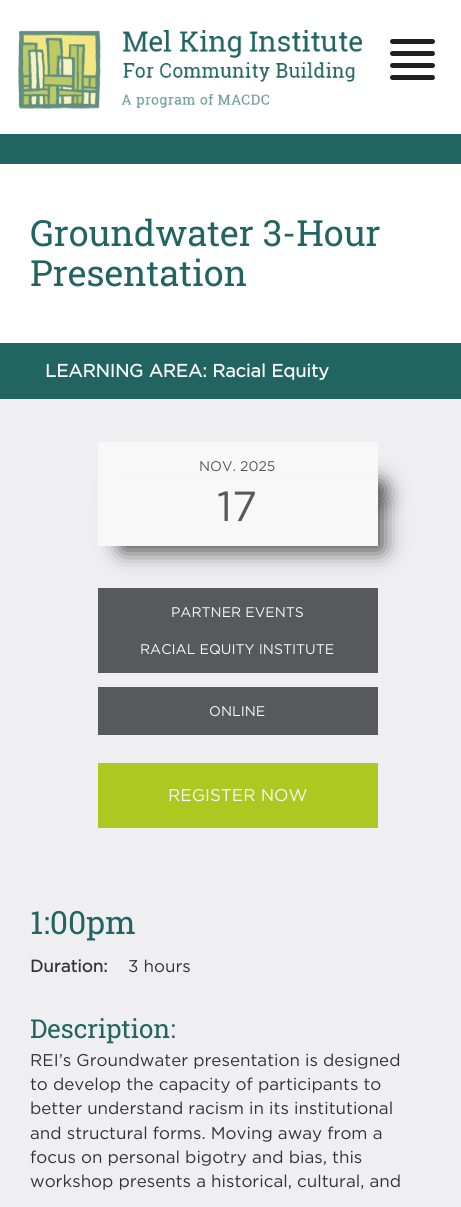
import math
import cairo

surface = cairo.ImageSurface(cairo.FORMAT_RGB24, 461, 1207)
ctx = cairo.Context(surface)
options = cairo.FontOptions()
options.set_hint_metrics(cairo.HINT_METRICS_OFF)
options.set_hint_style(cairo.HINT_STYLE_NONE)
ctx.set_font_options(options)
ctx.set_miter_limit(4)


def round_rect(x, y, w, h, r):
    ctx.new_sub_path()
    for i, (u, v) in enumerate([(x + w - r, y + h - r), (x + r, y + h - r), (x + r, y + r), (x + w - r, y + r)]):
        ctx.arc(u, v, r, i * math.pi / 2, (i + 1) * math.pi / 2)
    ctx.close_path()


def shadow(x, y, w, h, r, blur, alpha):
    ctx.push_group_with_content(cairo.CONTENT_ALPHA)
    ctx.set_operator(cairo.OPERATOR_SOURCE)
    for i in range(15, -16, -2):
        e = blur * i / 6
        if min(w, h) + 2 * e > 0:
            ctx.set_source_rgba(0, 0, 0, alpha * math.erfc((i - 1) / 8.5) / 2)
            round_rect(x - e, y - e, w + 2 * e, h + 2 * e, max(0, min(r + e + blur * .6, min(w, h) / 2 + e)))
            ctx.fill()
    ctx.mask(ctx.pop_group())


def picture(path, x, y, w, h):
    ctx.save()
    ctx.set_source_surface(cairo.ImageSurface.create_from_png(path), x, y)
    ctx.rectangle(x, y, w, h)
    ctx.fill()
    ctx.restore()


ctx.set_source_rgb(1, 1, 1)
ctx.paint()
picture("img1.png", 18, 30, 344, 79)
ctx.set_source_rgb(0.137, 0.122, 0.125)
round_rect(390, 39, 45, 5, 2.5)
ctx.fill()
round_rect(390, 51, 45, 5, 2.5)
ctx.fill()
round_rect(390, 63, 45, 5, 2.5)
ctx.fill()
round_rect(390, 75, 45, 5, 2.5)
ctx.fill()
ctx.set_source_rgb(0.129, 0.392, 0.38)
ctx.rectangle(0, 134, 461, 30)
ctx.fill()
ctx.set_source_rgb(0.937, 0.937, 0.945)
ctx.rectangle(0, 399, 461, 808)
ctx.fill()
ctx.select_font_face("Roboto Slab")
ctx.set_font_size(36)
ctx.set_source_rgb(0.129, 0.392, 0.38)
ctx.move_to(30, 246)
ctx.show_text("Groundwater 3-Hour")
ctx.move_to(30, 286)
ctx.show_text("Presentation")
ctx.rectangle(0, 343, 461, 56)
ctx.fill()
ctx.select_font_face("Gotham", cairo.FONT_SLANT_NORMAL, cairo.FONT_WEIGHT_BOLD)
ctx.set_font_size(18)
ctx.set_source_rgb(0.969, 0.969, 0.969)
ctx.move_to(45, 377)
ctx.show_text("LEARNING AREA: Racial Equity")
ctx.set_source_rgb(0, 0, 0)
shadow(122, 483, 260, 14, 0, 11.5, 0.75)
ctx.set_source_rgb(0.969, 0.969, 0.969)
ctx.rectangle(98, 442, 280, 104)
ctx.fill()
ctx.save()
ctx.set_fill_rule(cairo.FILL_RULE_EVEN_ODD)
ctx.new_path()
ctx.move_to(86, 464)
ctx.line_to(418, 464)
ctx.line_to(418, 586)
ctx.line_to(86, 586)
ctx.close_path()
ctx.move_to(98, 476)
ctx.line_to(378, 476)
ctx.line_to(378, 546)
ctx.line_to(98, 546)
ctx.close_path()
ctx.clip()
ctx.set_source_rgb(0, 0, 0)
shadow(122, 500, 260, 50, 0, 11.5, 0.75)
ctx.restore()
ctx.select_font_face("Gotham")
ctx.set_font_size(14)
ctx.set_source_rgb(0.345, 0.349, 0.357)
ctx.move_to(199, 471)
ctx.show_text("NOV. 2025")
ctx.set_font_size(42)
ctx.move_to(217, 521)
ctx.show_text("17")
ctx.rectangle(98, 588, 280, 85)
ctx.fill()
ctx.set_font_size(14)
ctx.set_source_rgb(0.969, 0.969, 0.969)
ctx.move_to(171, 617)
ctx.show_text("PARTNER EVENTS")
ctx.move_to(140, 654)
ctx.show_text("RACIAL EQUITY INSTITUTE")
ctx.set_source_rgb(0.345, 0.349, 0.357)
ctx.rectangle(98, 687, 280, 48)
ctx.fill()
ctx.set_source_rgb(0.969, 0.969, 0.969)
ctx.move_to(209, 716)
ctx.show_text("ONLINE")
ctx.set_source_rgb(0.675, 0.784, 0.129)
ctx.rectangle(98, 763, 280, 65)
ctx.fill()
ctx.set_font_size(17)
ctx.set_source_rgb(0.969, 0.969, 0.969)
ctx.move_to(168, 801)
ctx.show_text("REGISTER NOW")
ctx.select_font_face("Roboto Slab")
ctx.set_font_size(32)
ctx.set_source_rgb(0.129, 0.392, 0.38)
ctx.move_to(30, 934)
ctx.show_text("1:00pm")
ctx.select_font_face("Gotham", cairo.FONT_SLANT_NORMAL, cairo.FONT_WEIGHT_BOLD)
ctx.set_font_size(17)
ctx.set_source_rgb(0.2, 0.2, 0.2)
ctx.move_to(30, 972)
ctx.show_text("Duration:")
ctx.select_font_face("Gotham")
ctx.move_to(128, 972)
ctx.show_text("3 hours")
ctx.select_font_face("Roboto Slab")
ctx.set_font_size(26)
ctx.set_source_rgb(0.129, 0.392, 0.38)
ctx.move_to(30, 1038)
ctx.show_text("Description:")
ctx.select_font_face("Gotham")
ctx.set_font_size(17)
ctx.set_source_rgb(0.2, 0.2, 0.2)
ctx.move_to(30, 1066)
ctx.show_text("REI’s Groundwater presentation is designed")
ctx.move_to(30, 1090)
ctx.show_text("to develop the capacity of participants to")
ctx.move_to(30, 1114)
ctx.show_text("better understand racism in its institutional")
ctx.move_to(30, 1139)
ctx.show_text("and structural forms. Moving away from a")
ctx.move_to(30, 1163)
ctx.show_text("focus on personal bigotry and bias, this")
ctx.move_to(30, 1187)
ctx.show_text("workshop presents a historical, cultural, and")
surface.write_to_png("page.png")
